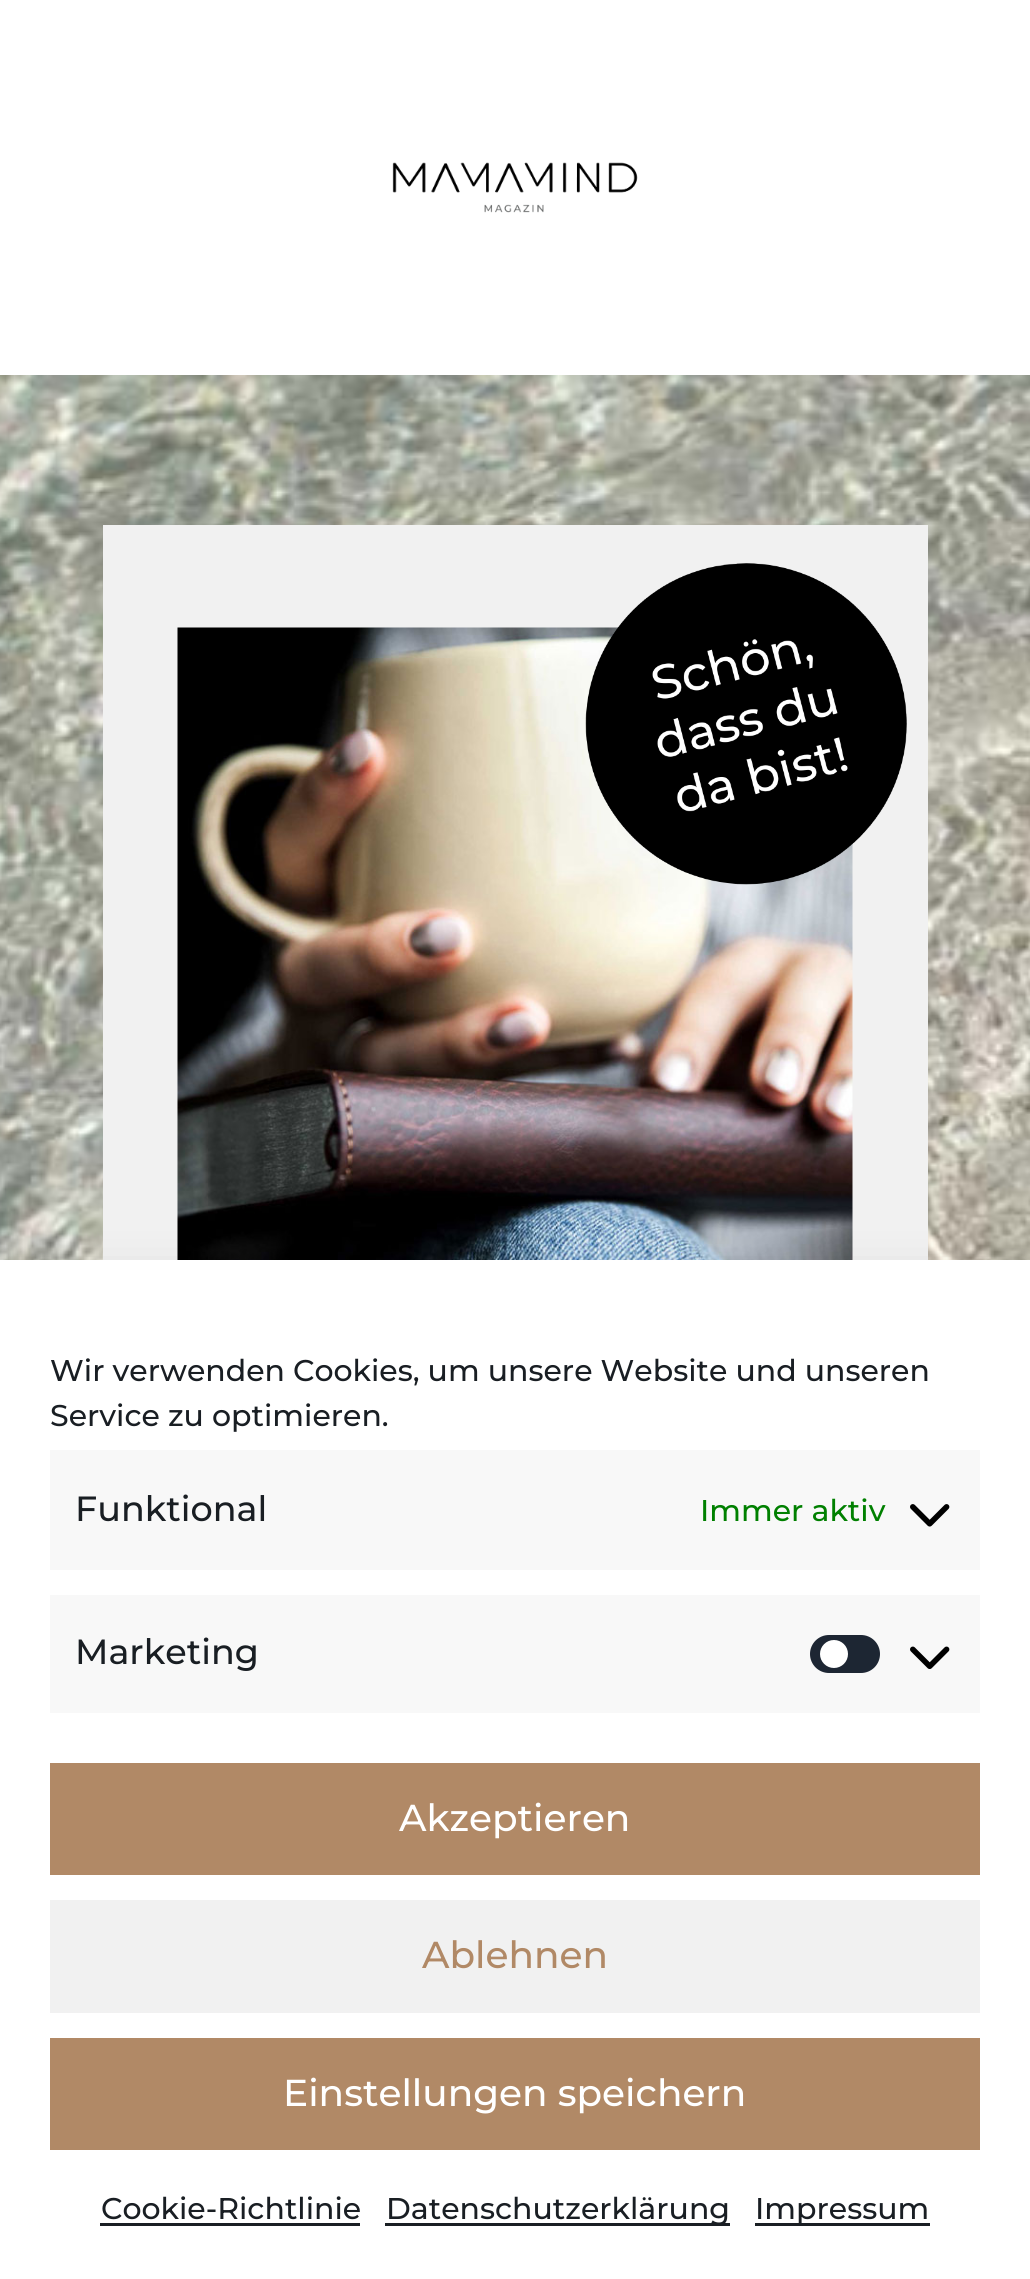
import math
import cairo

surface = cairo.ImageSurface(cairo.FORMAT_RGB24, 1030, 2279)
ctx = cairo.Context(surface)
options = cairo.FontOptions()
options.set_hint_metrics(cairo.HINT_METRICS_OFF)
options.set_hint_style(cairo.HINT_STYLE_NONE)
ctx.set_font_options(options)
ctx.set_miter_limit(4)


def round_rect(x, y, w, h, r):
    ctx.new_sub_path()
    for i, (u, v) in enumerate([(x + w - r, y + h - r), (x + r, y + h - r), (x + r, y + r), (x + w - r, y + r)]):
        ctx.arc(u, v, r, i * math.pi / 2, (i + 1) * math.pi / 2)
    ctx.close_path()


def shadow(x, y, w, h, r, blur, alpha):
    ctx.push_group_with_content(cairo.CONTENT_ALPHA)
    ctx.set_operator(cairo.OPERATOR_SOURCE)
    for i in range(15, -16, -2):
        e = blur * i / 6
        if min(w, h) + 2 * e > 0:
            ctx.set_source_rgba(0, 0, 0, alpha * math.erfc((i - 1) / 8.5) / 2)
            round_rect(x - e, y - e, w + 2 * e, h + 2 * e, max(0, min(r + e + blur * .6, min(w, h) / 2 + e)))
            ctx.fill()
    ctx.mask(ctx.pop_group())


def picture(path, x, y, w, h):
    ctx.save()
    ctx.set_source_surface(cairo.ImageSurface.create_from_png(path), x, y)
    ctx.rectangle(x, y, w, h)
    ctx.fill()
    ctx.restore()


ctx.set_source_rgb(1, 1, 1)
ctx.paint()
picture("img1.png", 392, 162, 246, 51)
picture("img2.png", 0, 375, 1030, 885)
ctx.set_source_rgb(0.945, 0.945, 0.945)
ctx.rectangle(103, 525, 825, 735)
ctx.fill()
picture("img4.png", 177, 627, 676, 633)
picture("img3.png", 585, 563, 322, 322)
ctx.set_source_rgb(0, 0, 0)
shadow(0, 1285, 1030, 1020, 0, 25, 0.19)
ctx.set_source_rgb(1, 1, 1)
ctx.rectangle(0, 1260, 1030, 1019)
ctx.fill()
ctx.select_font_face("Montserrat Thin")
ctx.set_font_size(30)
ctx.set_source_rgb(0.098, 0.118, 0.137)
ctx.move_to(50, 1381)
ctx.show_text("Wir verwenden Cookies, um unsere Website und unseren")
ctx.move_to(50, 1426)
ctx.show_text("Service zu optimieren.")
ctx.set_source_rgb(0.969, 0.969, 0.969)
ctx.rectangle(50, 1450, 930, 120)
ctx.fill()
ctx.set_font_size(35)
ctx.set_source_rgb(0.098, 0.118, 0.137)
ctx.move_to(75, 1521)
ctx.show_text("Funktional")
ctx.set_font_size(30)
ctx.set_source_rgb(0, 0.502, 0)
ctx.move_to(700, 1521)
ctx.show_text("Immer aktiv")
picture("img5.png", 910, 1504, 40, 23)
ctx.set_source_rgb(0.969, 0.969, 0.969)
ctx.rectangle(50, 1595, 930, 118)
ctx.fill()
ctx.set_font_size(35)
ctx.set_source_rgb(0.098, 0.118, 0.137)
ctx.move_to(75, 1664)
ctx.show_text("Marketing")
ctx.set_source_rgb(0.114, 0.149, 0.2)
round_rect(810, 1635, 70, 38, 19)
ctx.fill()
ctx.set_source_rgb(1, 1, 1)
ctx.arc(834, 1654, 14, 0, 2 * math.pi)
ctx.fill()
picture("img6.png", 910, 1646, 40, 23)
ctx.set_source_rgb(0.694, 0.537, 0.4)
ctx.rectangle(50, 1763, 930, 112)
ctx.fill()
ctx.set_font_size(37.5)
ctx.set_source_rgb(1, 1, 1)
ctx.move_to(399, 1831)
ctx.show_text("Akzeptieren")
ctx.set_source_rgb(0.945, 0.945, 0.945)
ctx.rectangle(50, 1900, 930, 113)
ctx.fill()
ctx.set_source_rgb(0.694, 0.537, 0.4)
ctx.move_to(422, 1968)
ctx.show_text("Ablehnen")
ctx.rectangle(50, 2038, 930, 112)
ctx.fill()
ctx.set_source_rgb(1, 1, 1)
ctx.move_to(283, 2106)
ctx.show_text("Einstellungen speichern")
ctx.set_font_size(30)
ctx.set_source_rgb(0.098, 0.118, 0.137)
ctx.move_to(101, 2219)
ctx.show_text("Cookie-Richtlinie")
ctx.rectangle(100, 2223, 260, 3)
ctx.fill()
ctx.rectangle(385, 2223, 345, 3)
ctx.fill()
ctx.move_to(386, 2219)
ctx.show_text("Datenschutzerklärung")
ctx.rectangle(755, 2223, 175, 3)
ctx.fill()
ctx.move_to(755, 2219)
ctx.show_text("Impressum")
surface.write_to_png("page.png")
